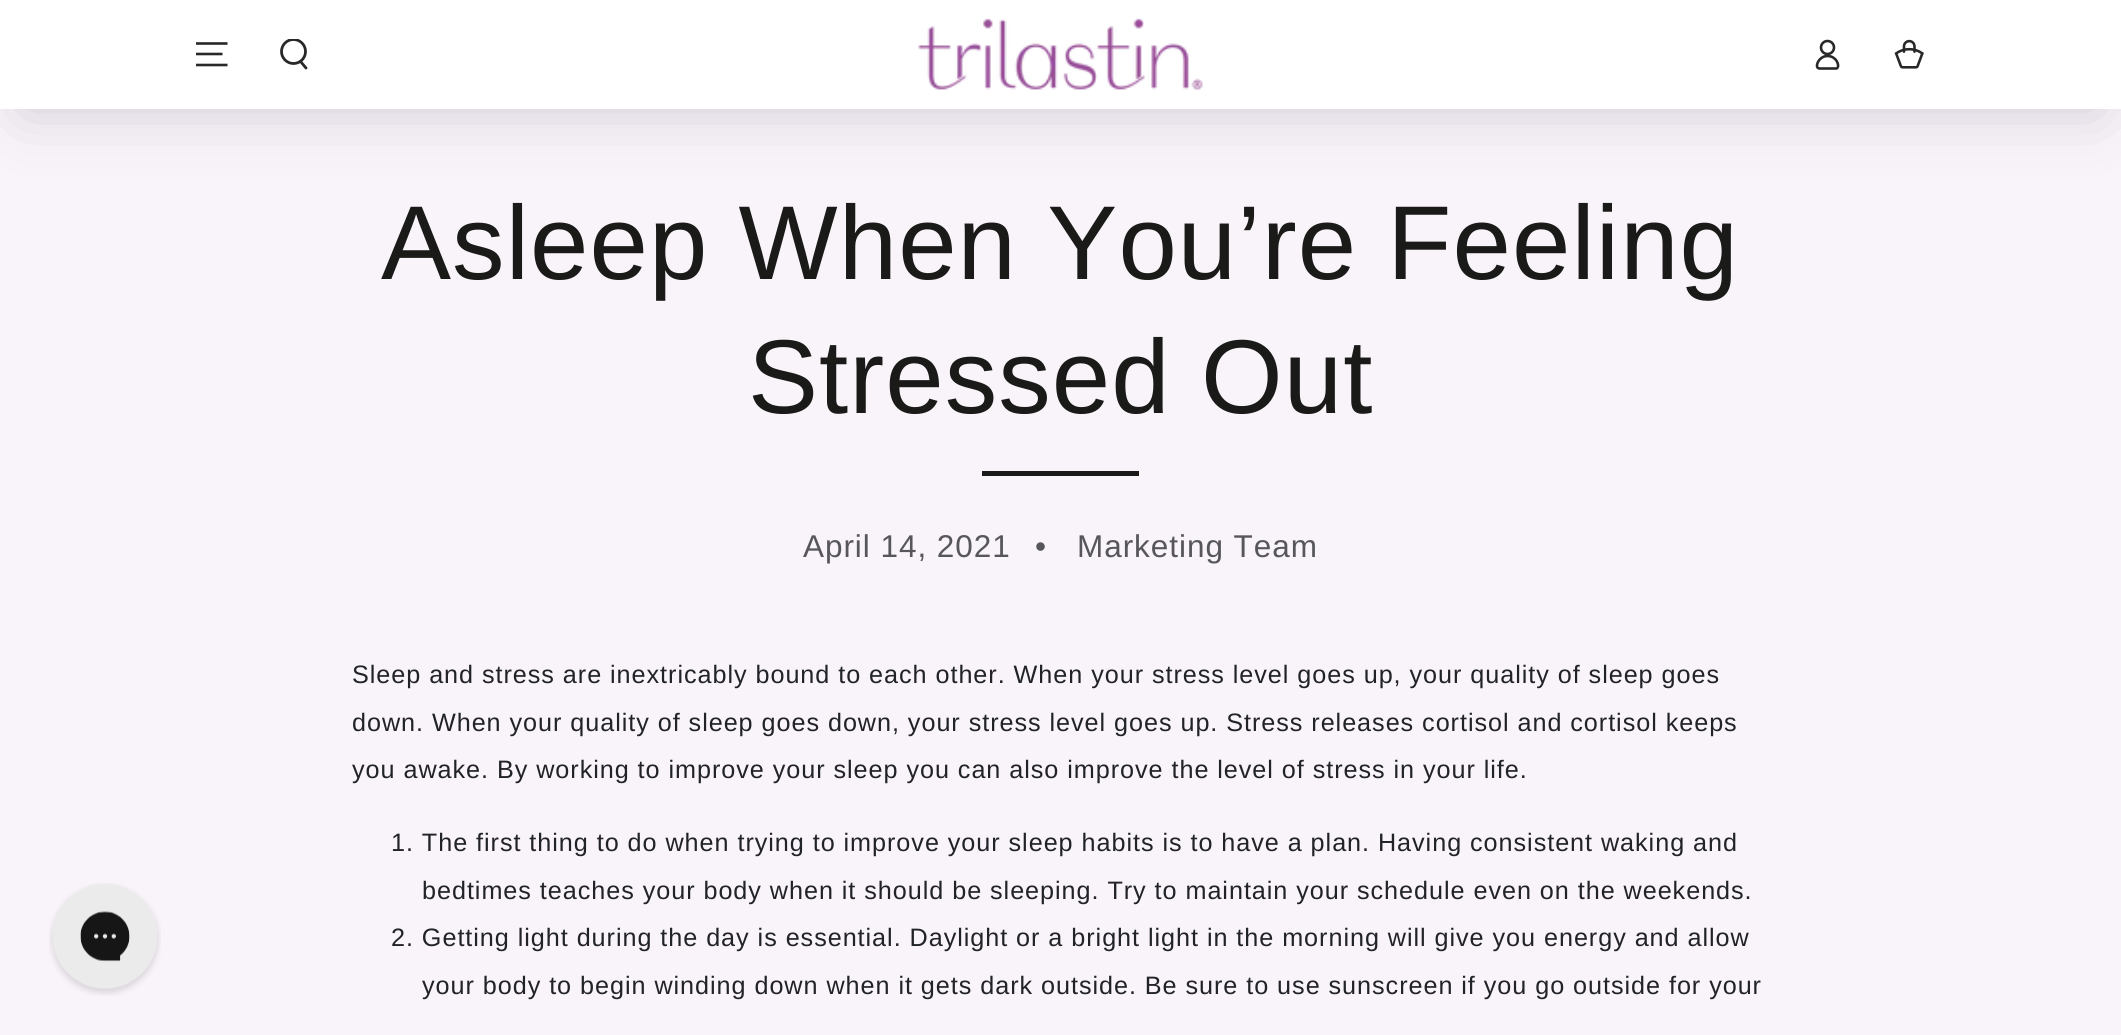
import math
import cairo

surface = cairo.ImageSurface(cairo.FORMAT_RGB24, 2121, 1035)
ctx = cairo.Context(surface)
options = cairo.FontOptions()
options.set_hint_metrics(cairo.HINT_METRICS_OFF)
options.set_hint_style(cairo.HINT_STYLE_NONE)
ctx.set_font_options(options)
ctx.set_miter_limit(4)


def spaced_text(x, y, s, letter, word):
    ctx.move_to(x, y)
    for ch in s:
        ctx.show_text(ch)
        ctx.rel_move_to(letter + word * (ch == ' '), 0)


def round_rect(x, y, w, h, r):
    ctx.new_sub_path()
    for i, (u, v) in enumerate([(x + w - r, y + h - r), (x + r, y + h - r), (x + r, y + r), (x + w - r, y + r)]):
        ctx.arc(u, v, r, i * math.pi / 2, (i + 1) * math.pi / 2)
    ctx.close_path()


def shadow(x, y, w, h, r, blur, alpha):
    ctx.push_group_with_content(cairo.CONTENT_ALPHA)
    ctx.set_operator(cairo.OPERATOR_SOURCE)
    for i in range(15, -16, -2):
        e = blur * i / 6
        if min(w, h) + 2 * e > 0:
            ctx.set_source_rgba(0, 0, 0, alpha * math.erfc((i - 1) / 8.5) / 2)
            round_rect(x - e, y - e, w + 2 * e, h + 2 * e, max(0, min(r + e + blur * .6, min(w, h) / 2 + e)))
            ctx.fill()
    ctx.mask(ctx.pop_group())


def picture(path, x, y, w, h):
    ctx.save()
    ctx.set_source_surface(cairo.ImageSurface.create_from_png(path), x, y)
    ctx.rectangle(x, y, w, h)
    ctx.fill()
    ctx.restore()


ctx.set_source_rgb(0.976, 0.953, 0.98)
ctx.paint()
picture("img1.png", 49, 883, 112, 113)
ctx.set_source_rgb(0.129, 0.137, 0.149)
shadow(25, 77, 2073, 32, 16, 31.5, 0.2)
ctx.set_source_rgb(1, 1, 1)
ctx.rectangle(0, 0, 2121, 109)
ctx.fill()
ctx.new_path()
ctx.move_to(196, 65)
ctx.line_to(227.5, 65)
ctx.move_to(196, 54)
ctx.line_to(222.5, 54)
ctx.move_to(196, 43.5)
ctx.line_to(227.5, 43.5)
ctx.set_source_rgb(0.157, 0.157, 0.157)
ctx.set_line_width(2.6)
ctx.stroke()
ctx.save()
ctx.rectangle(278, 39, 32, 31)
ctx.clip()
ctx.arc(293.5, 51.5, 12, 0, 2 * math.pi)
ctx.set_line_width(2.8)
ctx.stroke()
ctx.restore()
ctx.new_path()
ctx.move_to(300.5, 61.5)
ctx.line_to(306, 68)
ctx.set_line_width(2.8)
ctx.set_line_cap(cairo.LINE_CAP_ROUND)
ctx.stroke()
picture("img2.png", 918, 18, 285, 73)
ctx.new_path()
ctx.move_to(1827.5, 56)
ctx.curve_to(1818, 56, 1814, 68.5, 1819.5, 68.5)
ctx.line_to(1836.5, 68.5)
ctx.curve_to(1840, 67, 1837, 60.5, 1835, 59)
ctx.curve_to(1833, 57, 1830.5, 56, 1827.5, 56)
ctx.close_path()
ctx.set_line_width(2.6)
ctx.set_line_cap(cairo.LINE_CAP_BUTT)
ctx.stroke()
ctx.arc(1827.5, 47.5, 6.5, 0, 2 * math.pi)
ctx.stroke()
picture("img3.png", 1894, 39, 30, 30)
ctx.select_font_face("Liberation Sans")
ctx.set_font_size(105)
ctx.set_source_rgb(0.102, 0.106, 0.094)
spaced_text(381, 279, "Asleep When You’re Feeling", 1.05, 0)
spaced_text(748, 413, "Stressed Out", 1.05, 0)
ctx.rectangle(982, 471, 157, 5)
ctx.fill()
ctx.set_font_size(31.5)
ctx.set_source_rgb(0.341, 0.341, 0.357)
spaced_text(803, 557, "April 14, 2021", 0.95, 0)
spaced_text(1035, 557, "•", 0.95, 0)
spaced_text(1077, 557, "Marketing Team", 0.95, 0)
ctx.set_font_size(25.2)
ctx.set_source_rgb(0.129, 0.137, 0.149)
spaced_text(352, 683, "Sleep and stress are inextricably bound to each other. When your stress level goes up, your quality of sleep goes", 0.95, 0)
spaced_text(352, 731, "down. When your quality of sleep goes down, your stress level goes up. Stress releases cortisol and cortisol keeps", 0.95, 0)
spaced_text(352, 778, "you awake. By working to improve your sleep you can also improve the level of stress in your life.", 0.95, 0)
spaced_text(391, 851, "1. The first thing to do when trying to improve your sleep habits is to have a plan. Having consistent waking and", 0.95, 0)
spaced_text(422, 899, "bedtimes teaches your body when it should be sleeping. Try to maintain your schedule even on the weekends.", 0.95, 0)
spaced_text(391, 946, "2. Getting light during the day is essential. Daylight or a bright light in the morning will give you energy and allow", 0.95, 0)
spaced_text(422, 994, "your body to begin winding down when it gets dark outside. Be sure to use sunscreen if you go outside for your", 0.95, 0)
surface.write_to_png("page.png")
